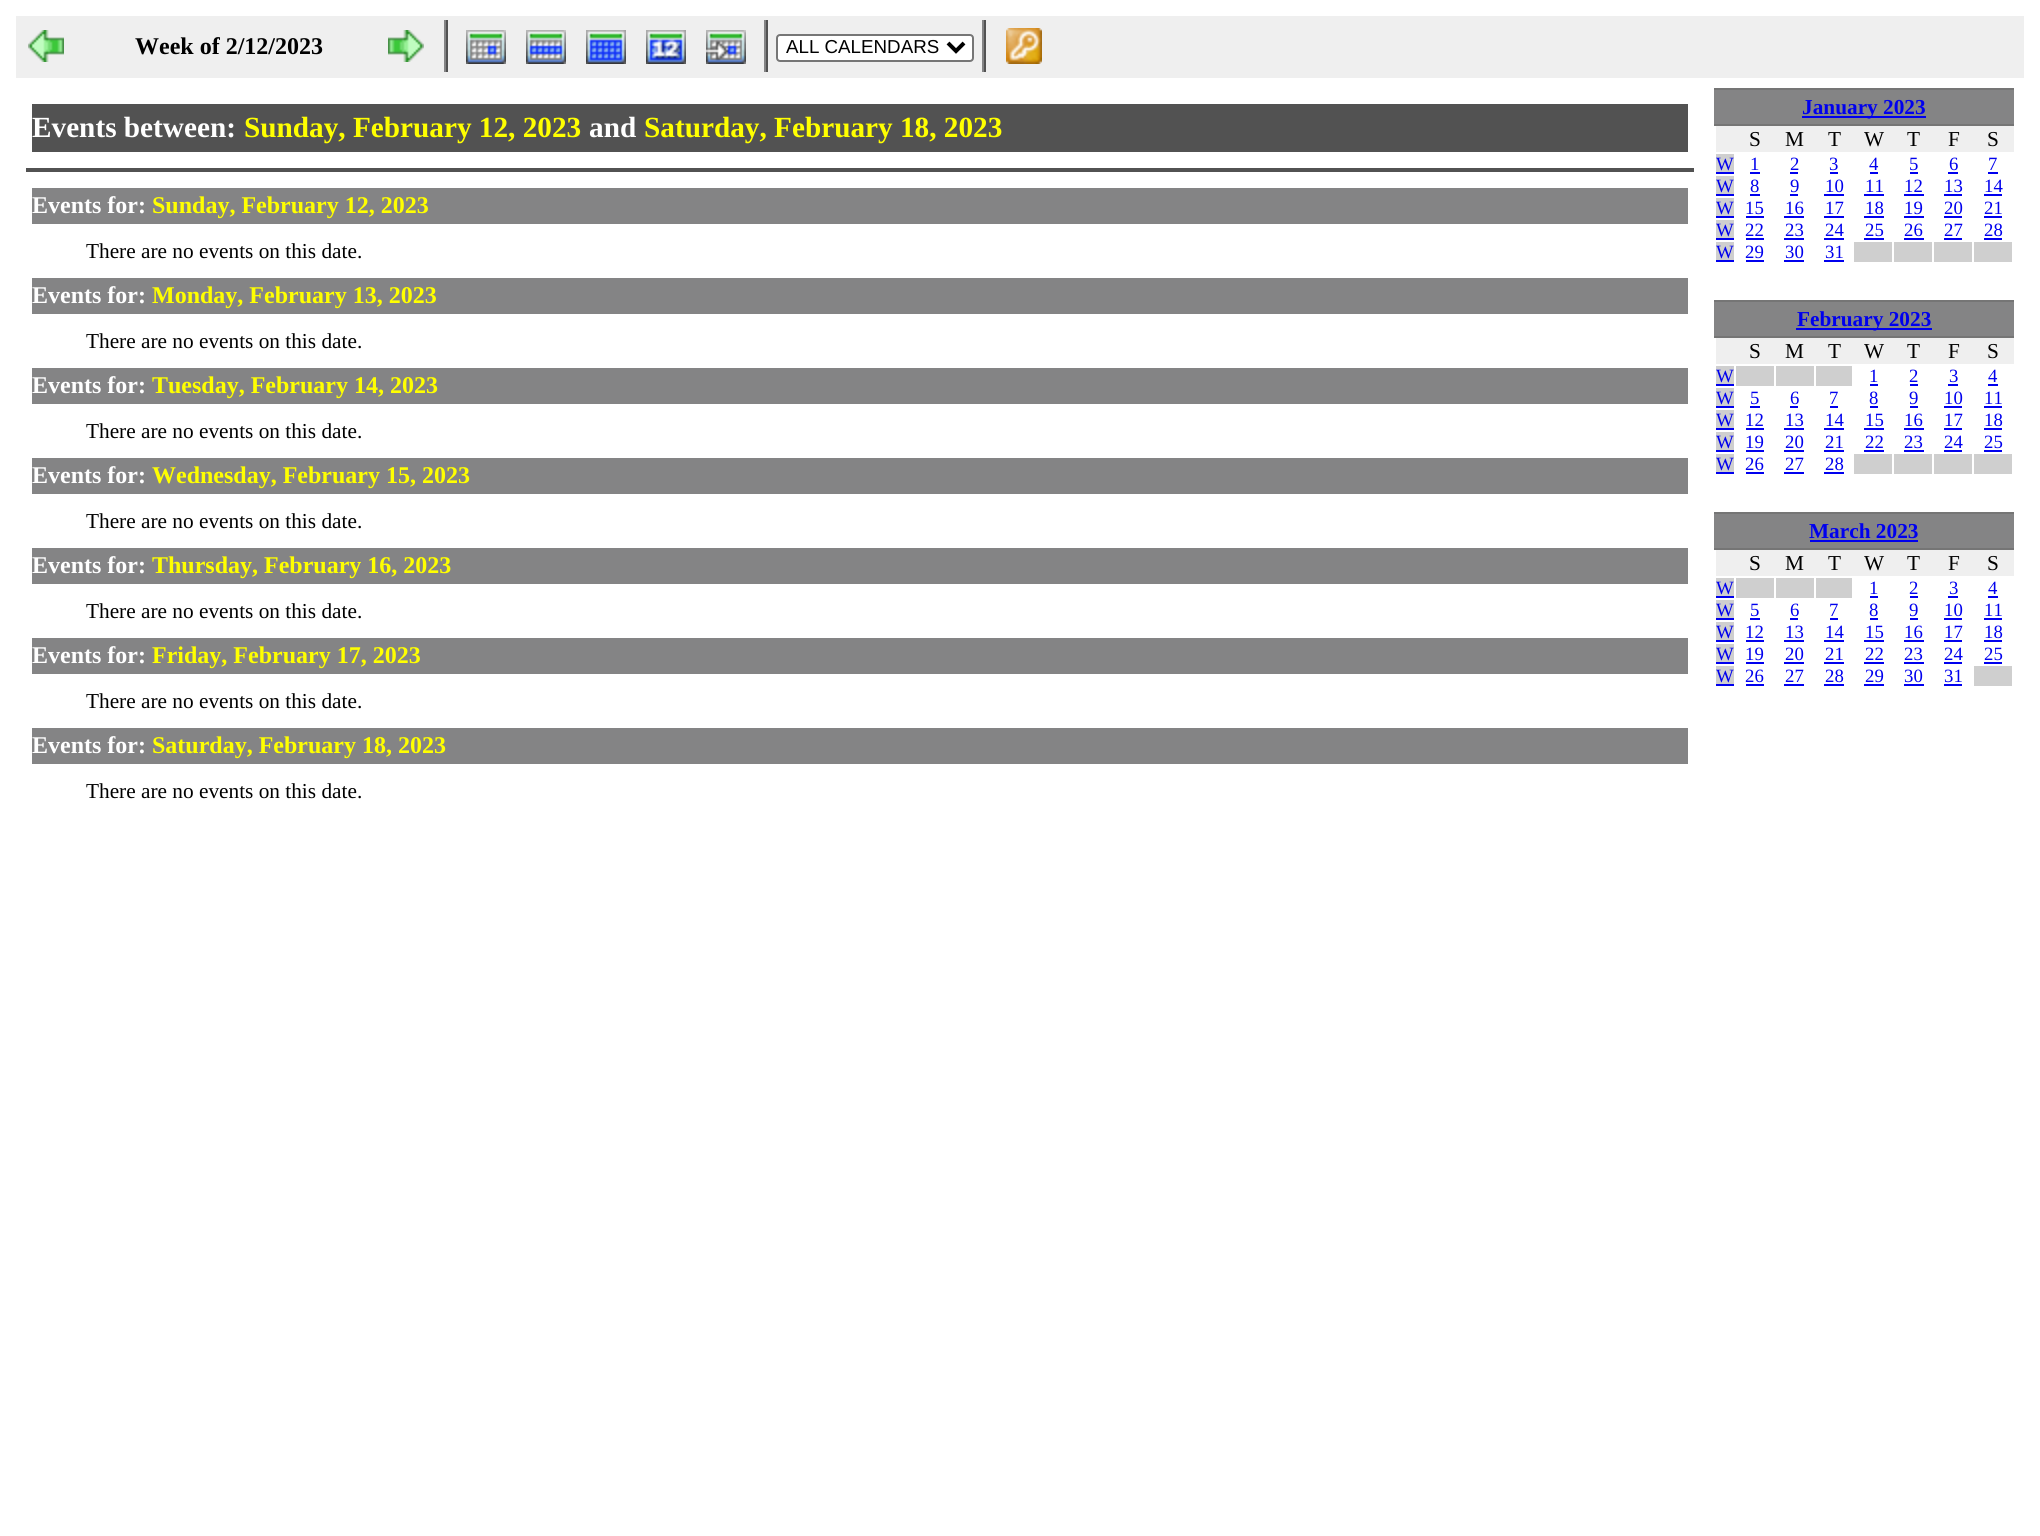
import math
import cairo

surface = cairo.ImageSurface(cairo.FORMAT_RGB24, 2040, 1536)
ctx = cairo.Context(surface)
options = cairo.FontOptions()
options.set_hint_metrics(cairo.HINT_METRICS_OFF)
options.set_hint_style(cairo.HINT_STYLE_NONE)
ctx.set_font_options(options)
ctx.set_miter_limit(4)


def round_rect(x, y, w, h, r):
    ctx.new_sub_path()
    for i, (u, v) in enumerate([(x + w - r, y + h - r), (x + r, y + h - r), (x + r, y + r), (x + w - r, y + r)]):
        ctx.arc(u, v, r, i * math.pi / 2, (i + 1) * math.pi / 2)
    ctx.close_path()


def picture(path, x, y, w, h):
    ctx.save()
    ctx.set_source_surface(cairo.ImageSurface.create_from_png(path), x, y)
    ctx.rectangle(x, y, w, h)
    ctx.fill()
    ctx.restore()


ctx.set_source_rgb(1, 1, 1)
ctx.paint()
ctx.set_source_rgb(0.937, 0.937, 0.937)
ctx.rectangle(16, 16, 2008, 62)
ctx.fill()
picture("img1.png", 28, 30, 36, 32)
ctx.select_font_face("Liberation Serif", cairo.FONT_SLANT_NORMAL, cairo.FONT_WEIGHT_BOLD)
ctx.set_font_size(24)
ctx.set_source_rgb(0, 0, 0)
ctx.move_to(135, 54)
ctx.show_text("Week of 2/12/2023")
picture("img2.png", 388, 30, 36, 32)
ctx.set_source_rgb(0.518, 0.518, 0.522)
ctx.rectangle(444, 20, 2, 52)
ctx.fill()
ctx.set_source_rgb(0.322, 0.322, 0.322)
ctx.rectangle(446, 20, 2, 52)
ctx.fill()
picture("img3.png", 466, 30, 40, 34)
picture("img4.png", 526, 30, 40, 34)
picture("img5.png", 586, 30, 40, 34)
picture("img6.png", 646, 30, 40, 34)
picture("img7.png", 706, 30, 40, 34)
ctx.set_source_rgb(0.518, 0.518, 0.522)
ctx.rectangle(764, 20, 2, 52)
ctx.fill()
ctx.set_source_rgb(0.322, 0.322, 0.322)
ctx.rectangle(766, 20, 2, 52)
ctx.fill()
ctx.set_source_rgb(1, 1, 1)
round_rect(777, 35, 196, 26, 3)
ctx.fill_preserve()
ctx.set_source_rgb(0.463, 0.463, 0.463)
ctx.stroke()
ctx.new_path()
ctx.move_to(948, 43)
ctx.line_to(956, 51)
ctx.line_to(964, 43)
ctx.set_source_rgb(0, 0, 0)
ctx.set_line_width(4)
ctx.stroke()
ctx.select_font_face("Liberation Sans")
ctx.set_font_size(18.75)
ctx.move_to(786, 53)
ctx.show_text("ALL CALENDARS")
ctx.set_source_rgb(0.518, 0.518, 0.522)
ctx.rectangle(982, 20, 2, 52)
ctx.fill()
ctx.set_source_rgb(0.322, 0.322, 0.322)
ctx.rectangle(984, 20, 2, 52)
ctx.fill()
picture("img8.png", 1006, 28, 36, 36)
ctx.rectangle(32, 104, 1656, 48)
ctx.fill()
ctx.select_font_face("Liberation Serif", cairo.FONT_SLANT_NORMAL, cairo.FONT_WEIGHT_BOLD)
ctx.set_font_size(29.25)
ctx.set_source_rgb(1, 1, 1)
ctx.move_to(32, 137)
ctx.show_text("Events between:")
ctx.set_source_rgb(1, 1, 0)
ctx.move_to(244, 137)
ctx.show_text("Sunday, February 12, 2023")
ctx.set_source_rgb(1, 1, 1)
ctx.move_to(589, 137)
ctx.show_text("and")
ctx.set_source_rgb(1, 1, 0)
ctx.move_to(644, 137)
ctx.show_text("Saturday, February 18, 2023")
ctx.set_source_rgb(0.322, 0.322, 0.322)
ctx.rectangle(26, 168, 1668, 4)
ctx.fill()
ctx.set_source_rgb(0.518, 0.518, 0.522)
ctx.rectangle(32, 188, 1656, 36)
ctx.fill()
ctx.set_font_size(24)
ctx.set_source_rgb(1, 1, 1)
ctx.move_to(32, 213)
ctx.show_text("Events for:")
ctx.set_source_rgb(1, 1, 0)
ctx.move_to(152, 213)
ctx.show_text("Sunday, February 12, 2023")
ctx.select_font_face("Liberation Serif")
ctx.set_font_size(21.3)
ctx.set_source_rgb(0, 0, 0)
ctx.move_to(86, 258)
ctx.show_text("There are no events on this date.")
ctx.set_source_rgb(0.518, 0.518, 0.522)
ctx.rectangle(32, 278, 1656, 36)
ctx.fill()
ctx.select_font_face("Liberation Serif", cairo.FONT_SLANT_NORMAL, cairo.FONT_WEIGHT_BOLD)
ctx.set_font_size(24)
ctx.set_source_rgb(1, 1, 1)
ctx.move_to(32, 303)
ctx.show_text("Events for:")
ctx.set_source_rgb(1, 1, 0)
ctx.move_to(152, 303)
ctx.show_text("Monday, February 13, 2023")
ctx.select_font_face("Liberation Serif")
ctx.set_font_size(21.3)
ctx.set_source_rgb(0, 0, 0)
ctx.move_to(86, 348)
ctx.show_text("There are no events on this date.")
ctx.set_source_rgb(0.518, 0.518, 0.522)
ctx.rectangle(32, 368, 1656, 36)
ctx.fill()
ctx.select_font_face("Liberation Serif", cairo.FONT_SLANT_NORMAL, cairo.FONT_WEIGHT_BOLD)
ctx.set_font_size(24)
ctx.set_source_rgb(1, 1, 1)
ctx.move_to(32, 393)
ctx.show_text("Events for:")
ctx.set_source_rgb(1, 1, 0)
ctx.move_to(152, 393)
ctx.show_text("Tuesday, February 14, 2023")
ctx.select_font_face("Liberation Serif")
ctx.set_font_size(21.3)
ctx.set_source_rgb(0, 0, 0)
ctx.move_to(86, 438)
ctx.show_text("There are no events on this date.")
ctx.set_source_rgb(0.518, 0.518, 0.522)
ctx.rectangle(32, 458, 1656, 36)
ctx.fill()
ctx.select_font_face("Liberation Serif", cairo.FONT_SLANT_NORMAL, cairo.FONT_WEIGHT_BOLD)
ctx.set_font_size(24)
ctx.set_source_rgb(1, 1, 1)
ctx.move_to(32, 483)
ctx.show_text("Events for:")
ctx.set_source_rgb(1, 1, 0)
ctx.move_to(152, 483)
ctx.show_text("Wednesday, February 15, 2023")
ctx.select_font_face("Liberation Serif")
ctx.set_font_size(21.3)
ctx.set_source_rgb(0, 0, 0)
ctx.move_to(86, 528)
ctx.show_text("There are no events on this date.")
ctx.set_source_rgb(0.518, 0.518, 0.522)
ctx.rectangle(32, 548, 1656, 36)
ctx.fill()
ctx.select_font_face("Liberation Serif", cairo.FONT_SLANT_NORMAL, cairo.FONT_WEIGHT_BOLD)
ctx.set_font_size(24)
ctx.set_source_rgb(1, 1, 1)
ctx.move_to(32, 573)
ctx.show_text("Events for:")
ctx.set_source_rgb(1, 1, 0)
ctx.move_to(152, 573)
ctx.show_text("Thursday, February 16, 2023")
ctx.select_font_face("Liberation Serif")
ctx.set_font_size(21.3)
ctx.set_source_rgb(0, 0, 0)
ctx.move_to(86, 618)
ctx.show_text("There are no events on this date.")
ctx.set_source_rgb(0.518, 0.518, 0.522)
ctx.rectangle(32, 638, 1656, 36)
ctx.fill()
ctx.select_font_face("Liberation Serif", cairo.FONT_SLANT_NORMAL, cairo.FONT_WEIGHT_BOLD)
ctx.set_font_size(24)
ctx.set_source_rgb(1, 1, 1)
ctx.move_to(32, 663)
ctx.show_text("Events for:")
ctx.set_source_rgb(1, 1, 0)
ctx.move_to(152, 663)
ctx.show_text("Friday, February 17, 2023")
ctx.select_font_face("Liberation Serif")
ctx.set_font_size(21.3)
ctx.set_source_rgb(0, 0, 0)
ctx.move_to(86, 708)
ctx.show_text("There are no events on this date.")
ctx.set_source_rgb(0.518, 0.518, 0.522)
ctx.rectangle(32, 728, 1656, 36)
ctx.fill()
ctx.select_font_face("Liberation Serif", cairo.FONT_SLANT_NORMAL, cairo.FONT_WEIGHT_BOLD)
ctx.set_font_size(24)
ctx.set_source_rgb(1, 1, 1)
ctx.move_to(32, 753)
ctx.show_text("Events for:")
ctx.set_source_rgb(1, 1, 0)
ctx.move_to(152, 753)
ctx.show_text("Saturday, February 18, 2023")
ctx.select_font_face("Liberation Serif")
ctx.set_font_size(21.3)
ctx.set_source_rgb(0, 0, 0)
ctx.move_to(86, 798)
ctx.show_text("There are no events on this date.")
ctx.set_source_rgb(0.518, 0.518, 0.522)
ctx.rectangle(1714, 90, 300, 34)
ctx.fill()
ctx.set_source_rgb(0.459, 0.459, 0.459)
ctx.rectangle(1714, 88, 300, 2)
ctx.fill()
ctx.rectangle(1714, 124, 300, 2)
ctx.fill()
ctx.set_source_rgb(0, 0, 0.933)
ctx.rectangle(1802, 116, 124, 2)
ctx.fill()
ctx.select_font_face("Liberation Serif", cairo.FONT_SLANT_NORMAL, cairo.FONT_WEIGHT_BOLD)
ctx.move_to(1802, 114)
ctx.show_text("January 2023")
ctx.set_source_rgb(0.937, 0.937, 0.937)
ctx.rectangle(1716, 126, 298, 26)
ctx.fill()
ctx.select_font_face("Liberation Serif")
ctx.set_source_rgb(0, 0, 0)
ctx.move_to(1749, 146)
ctx.show_text("S")
ctx.move_to(1785, 146)
ctx.show_text("M")
ctx.move_to(1828, 146)
ctx.show_text("T")
ctx.move_to(1864, 146)
ctx.show_text("W")
ctx.move_to(1907, 146)
ctx.show_text("T")
ctx.move_to(1948, 146)
ctx.show_text("F")
ctx.move_to(1987, 146)
ctx.show_text("S")
ctx.set_source_rgb(0.812, 0.812, 0.812)
ctx.rectangle(1716, 154, 18, 18)
ctx.fill()
ctx.set_font_size(18.75)
ctx.set_source_rgb(0, 0, 0.933)
ctx.move_to(1716, 170)
ctx.show_text("W")
ctx.rectangle(1716, 172, 18, 2)
ctx.fill()
ctx.move_to(1750, 170)
ctx.show_text("1")
ctx.rectangle(1750, 172, 10, 2)
ctx.fill()
ctx.move_to(1790, 170)
ctx.show_text("2")
ctx.rectangle(1790, 172, 8, 2)
ctx.fill()
ctx.move_to(1829, 170)
ctx.show_text("3")
ctx.rectangle(1830, 172, 8, 2)
ctx.fill()
ctx.move_to(1869, 170)
ctx.show_text("4")
ctx.rectangle(1870, 172, 8, 2)
ctx.fill()
ctx.move_to(1909, 170)
ctx.show_text("5")
ctx.rectangle(1910, 172, 8, 2)
ctx.fill()
ctx.move_to(1949, 170)
ctx.show_text("6")
ctx.rectangle(1948, 172, 10, 2)
ctx.fill()
ctx.move_to(1988, 170)
ctx.show_text("7")
ctx.rectangle(1988, 172, 10, 2)
ctx.fill()
ctx.set_source_rgb(0.812, 0.812, 0.812)
ctx.rectangle(1716, 176, 18, 18)
ctx.fill()
ctx.set_source_rgb(0, 0, 0.933)
ctx.move_to(1716, 192)
ctx.show_text("W")
ctx.rectangle(1716, 194, 18, 2)
ctx.fill()
ctx.move_to(1750, 192)
ctx.show_text("8")
ctx.rectangle(1750, 194, 10, 2)
ctx.fill()
ctx.move_to(1790, 192)
ctx.show_text("9")
ctx.rectangle(1790, 194, 8, 2)
ctx.fill()
ctx.move_to(1825, 192)
ctx.show_text("10")
ctx.rectangle(1824, 194, 20, 2)
ctx.fill()
ctx.move_to(1865, 192)
ctx.show_text("11")
ctx.rectangle(1864, 194, 20, 2)
ctx.fill()
ctx.move_to(1904, 192)
ctx.show_text("12")
ctx.rectangle(1904, 194, 20, 2)
ctx.fill()
ctx.move_to(1944, 192)
ctx.show_text("13")
ctx.rectangle(1944, 194, 18, 2)
ctx.fill()
ctx.move_to(1984, 192)
ctx.show_text("14")
ctx.rectangle(1984, 194, 18, 2)
ctx.fill()
ctx.set_source_rgb(0.812, 0.812, 0.812)
ctx.rectangle(1716, 198, 18, 18)
ctx.fill()
ctx.set_source_rgb(0, 0, 0.933)
ctx.move_to(1716, 214)
ctx.show_text("W")
ctx.rectangle(1716, 216, 18, 2)
ctx.fill()
ctx.move_to(1745, 214)
ctx.show_text("15")
ctx.rectangle(1746, 216, 18, 2)
ctx.fill()
ctx.move_to(1785, 214)
ctx.show_text("16")
ctx.rectangle(1784, 216, 20, 2)
ctx.fill()
ctx.move_to(1825, 214)
ctx.show_text("17")
ctx.rectangle(1824, 216, 20, 2)
ctx.fill()
ctx.move_to(1865, 214)
ctx.show_text("18")
ctx.rectangle(1864, 216, 20, 2)
ctx.fill()
ctx.move_to(1904, 214)
ctx.show_text("19")
ctx.rectangle(1904, 216, 20, 2)
ctx.fill()
ctx.move_to(1944, 214)
ctx.show_text("20")
ctx.rectangle(1944, 216, 18, 2)
ctx.fill()
ctx.move_to(1984, 214)
ctx.show_text("21")
ctx.rectangle(1984, 216, 18, 2)
ctx.fill()
ctx.set_source_rgb(0.812, 0.812, 0.812)
ctx.rectangle(1716, 220, 18, 18)
ctx.fill()
ctx.set_source_rgb(0, 0, 0.933)
ctx.move_to(1716, 236)
ctx.show_text("W")
ctx.rectangle(1716, 238, 18, 2)
ctx.fill()
ctx.move_to(1745, 236)
ctx.show_text("22")
ctx.rectangle(1746, 238, 18, 2)
ctx.fill()
ctx.move_to(1785, 236)
ctx.show_text("23")
ctx.rectangle(1784, 238, 20, 2)
ctx.fill()
ctx.move_to(1825, 236)
ctx.show_text("24")
ctx.rectangle(1824, 238, 20, 2)
ctx.fill()
ctx.move_to(1865, 236)
ctx.show_text("25")
ctx.rectangle(1864, 238, 20, 2)
ctx.fill()
ctx.move_to(1904, 236)
ctx.show_text("26")
ctx.rectangle(1904, 238, 20, 2)
ctx.fill()
ctx.move_to(1944, 236)
ctx.show_text("27")
ctx.rectangle(1944, 238, 18, 2)
ctx.fill()
ctx.move_to(1984, 236)
ctx.show_text("28")
ctx.rectangle(1984, 238, 18, 2)
ctx.fill()
ctx.set_source_rgb(0.812, 0.812, 0.812)
ctx.rectangle(1716, 242, 18, 18)
ctx.fill()
ctx.set_source_rgb(0, 0, 0.933)
ctx.move_to(1716, 258)
ctx.show_text("W")
ctx.rectangle(1716, 260, 18, 2)
ctx.fill()
ctx.move_to(1745, 258)
ctx.show_text("29")
ctx.rectangle(1746, 260, 18, 2)
ctx.fill()
ctx.move_to(1785, 258)
ctx.show_text("30")
ctx.rectangle(1784, 260, 20, 2)
ctx.fill()
ctx.move_to(1825, 258)
ctx.show_text("31")
ctx.rectangle(1824, 260, 20, 2)
ctx.fill()
ctx.set_source_rgb(0.812, 0.812, 0.812)
ctx.rectangle(1854, 242, 38, 20)
ctx.fill()
ctx.rectangle(1894, 242, 38, 20)
ctx.fill()
ctx.rectangle(1934, 242, 38, 20)
ctx.fill()
ctx.rectangle(1974, 242, 38, 20)
ctx.fill()
ctx.set_source_rgb(0.518, 0.518, 0.522)
ctx.rectangle(1714, 302, 300, 34)
ctx.fill()
ctx.set_source_rgb(0.459, 0.459, 0.459)
ctx.rectangle(1714, 300, 300, 2)
ctx.fill()
ctx.rectangle(1714, 336, 300, 2)
ctx.fill()
ctx.set_source_rgb(0, 0, 0.933)
ctx.rectangle(1796, 328, 136, 2)
ctx.fill()
ctx.select_font_face("Liberation Serif", cairo.FONT_SLANT_NORMAL, cairo.FONT_WEIGHT_BOLD)
ctx.set_font_size(21.3)
ctx.move_to(1797, 326)
ctx.show_text("February 2023")
ctx.set_source_rgb(0.937, 0.937, 0.937)
ctx.rectangle(1716, 338, 298, 26)
ctx.fill()
ctx.select_font_face("Liberation Serif")
ctx.set_source_rgb(0, 0, 0)
ctx.move_to(1749, 358)
ctx.show_text("S")
ctx.move_to(1785, 358)
ctx.show_text("M")
ctx.move_to(1828, 358)
ctx.show_text("T")
ctx.move_to(1864, 358)
ctx.show_text("W")
ctx.move_to(1907, 358)
ctx.show_text("T")
ctx.move_to(1948, 358)
ctx.show_text("F")
ctx.move_to(1987, 358)
ctx.show_text("S")
ctx.set_source_rgb(0.812, 0.812, 0.812)
ctx.rectangle(1716, 366, 18, 18)
ctx.fill()
ctx.set_font_size(18.75)
ctx.set_source_rgb(0, 0, 0.933)
ctx.move_to(1716, 382)
ctx.show_text("W")
ctx.rectangle(1716, 384, 18, 2)
ctx.fill()
ctx.set_source_rgb(0.812, 0.812, 0.812)
ctx.rectangle(1736, 366, 38, 20)
ctx.fill()
ctx.rectangle(1776, 366, 38, 20)
ctx.fill()
ctx.rectangle(1816, 366, 36, 20)
ctx.fill()
ctx.set_source_rgb(0, 0, 0.933)
ctx.move_to(1869, 382)
ctx.show_text("1")
ctx.rectangle(1870, 384, 8, 2)
ctx.fill()
ctx.move_to(1909, 382)
ctx.show_text("2")
ctx.rectangle(1910, 384, 8, 2)
ctx.fill()
ctx.move_to(1949, 382)
ctx.show_text("3")
ctx.rectangle(1948, 384, 10, 2)
ctx.fill()
ctx.move_to(1988, 382)
ctx.show_text("4")
ctx.rectangle(1988, 384, 10, 2)
ctx.fill()
ctx.set_source_rgb(0.812, 0.812, 0.812)
ctx.rectangle(1716, 388, 18, 18)
ctx.fill()
ctx.set_source_rgb(0, 0, 0.933)
ctx.move_to(1716, 404)
ctx.show_text("W")
ctx.rectangle(1716, 406, 18, 2)
ctx.fill()
ctx.move_to(1750, 404)
ctx.show_text("5")
ctx.rectangle(1750, 406, 10, 2)
ctx.fill()
ctx.move_to(1790, 404)
ctx.show_text("6")
ctx.rectangle(1790, 406, 8, 2)
ctx.fill()
ctx.move_to(1829, 404)
ctx.show_text("7")
ctx.rectangle(1830, 406, 8, 2)
ctx.fill()
ctx.move_to(1869, 404)
ctx.show_text("8")
ctx.rectangle(1870, 406, 8, 2)
ctx.fill()
ctx.move_to(1909, 404)
ctx.show_text("9")
ctx.rectangle(1910, 406, 8, 2)
ctx.fill()
ctx.move_to(1944, 404)
ctx.show_text("10")
ctx.rectangle(1944, 406, 18, 2)
ctx.fill()
ctx.move_to(1984, 404)
ctx.show_text("11")
ctx.rectangle(1984, 406, 18, 2)
ctx.fill()
ctx.set_source_rgb(0.812, 0.812, 0.812)
ctx.rectangle(1716, 410, 18, 18)
ctx.fill()
ctx.set_source_rgb(0, 0, 0.933)
ctx.move_to(1716, 426)
ctx.show_text("W")
ctx.rectangle(1716, 428, 18, 2)
ctx.fill()
ctx.move_to(1745, 426)
ctx.show_text("12")
ctx.rectangle(1746, 428, 18, 2)
ctx.fill()
ctx.move_to(1785, 426)
ctx.show_text("13")
ctx.rectangle(1784, 428, 20, 2)
ctx.fill()
ctx.move_to(1825, 426)
ctx.show_text("14")
ctx.rectangle(1824, 428, 20, 2)
ctx.fill()
ctx.move_to(1865, 426)
ctx.show_text("15")
ctx.rectangle(1864, 428, 20, 2)
ctx.fill()
ctx.move_to(1904, 426)
ctx.show_text("16")
ctx.rectangle(1904, 428, 20, 2)
ctx.fill()
ctx.move_to(1944, 426)
ctx.show_text("17")
ctx.rectangle(1944, 428, 18, 2)
ctx.fill()
ctx.move_to(1984, 426)
ctx.show_text("18")
ctx.rectangle(1984, 428, 18, 2)
ctx.fill()
ctx.set_source_rgb(0.812, 0.812, 0.812)
ctx.rectangle(1716, 432, 18, 18)
ctx.fill()
ctx.set_source_rgb(0, 0, 0.933)
ctx.move_to(1716, 448)
ctx.show_text("W")
ctx.rectangle(1716, 450, 18, 2)
ctx.fill()
ctx.move_to(1745, 448)
ctx.show_text("19")
ctx.rectangle(1746, 450, 18, 2)
ctx.fill()
ctx.move_to(1785, 448)
ctx.show_text("20")
ctx.rectangle(1784, 450, 20, 2)
ctx.fill()
ctx.move_to(1825, 448)
ctx.show_text("21")
ctx.rectangle(1824, 450, 20, 2)
ctx.fill()
ctx.move_to(1865, 448)
ctx.show_text("22")
ctx.rectangle(1864, 450, 20, 2)
ctx.fill()
ctx.move_to(1904, 448)
ctx.show_text("23")
ctx.rectangle(1904, 450, 20, 2)
ctx.fill()
ctx.move_to(1944, 448)
ctx.show_text("24")
ctx.rectangle(1944, 450, 18, 2)
ctx.fill()
ctx.move_to(1984, 448)
ctx.show_text("25")
ctx.rectangle(1984, 450, 18, 2)
ctx.fill()
ctx.set_source_rgb(0.812, 0.812, 0.812)
ctx.rectangle(1716, 454, 18, 18)
ctx.fill()
ctx.set_source_rgb(0, 0, 0.933)
ctx.move_to(1716, 470)
ctx.show_text("W")
ctx.rectangle(1716, 472, 18, 2)
ctx.fill()
ctx.move_to(1745, 470)
ctx.show_text("26")
ctx.rectangle(1746, 472, 18, 2)
ctx.fill()
ctx.move_to(1785, 470)
ctx.show_text("27")
ctx.rectangle(1784, 472, 20, 2)
ctx.fill()
ctx.move_to(1825, 470)
ctx.show_text("28")
ctx.rectangle(1824, 472, 20, 2)
ctx.fill()
ctx.set_source_rgb(0.812, 0.812, 0.812)
ctx.rectangle(1854, 454, 38, 20)
ctx.fill()
ctx.rectangle(1894, 454, 38, 20)
ctx.fill()
ctx.rectangle(1934, 454, 38, 20)
ctx.fill()
ctx.rectangle(1974, 454, 38, 20)
ctx.fill()
ctx.set_source_rgb(0.518, 0.518, 0.522)
ctx.rectangle(1714, 514, 300, 34)
ctx.fill()
ctx.set_source_rgb(0.459, 0.459, 0.459)
ctx.rectangle(1714, 512, 300, 2)
ctx.fill()
ctx.rectangle(1714, 548, 300, 2)
ctx.fill()
ctx.select_font_face("Liberation Serif", cairo.FONT_SLANT_NORMAL, cairo.FONT_WEIGHT_BOLD)
ctx.set_font_size(21.3)
ctx.set_source_rgb(0, 0, 0.933)
ctx.move_to(1809, 538)
ctx.show_text("March 2023")
ctx.rectangle(1810, 540, 108, 2)
ctx.fill()
ctx.set_source_rgb(0.937, 0.937, 0.937)
ctx.rectangle(1716, 550, 298, 26)
ctx.fill()
ctx.select_font_face("Liberation Serif")
ctx.set_source_rgb(0, 0, 0)
ctx.move_to(1749, 570)
ctx.show_text("S")
ctx.move_to(1785, 570)
ctx.show_text("M")
ctx.move_to(1828, 570)
ctx.show_text("T")
ctx.move_to(1864, 570)
ctx.show_text("W")
ctx.move_to(1907, 570)
ctx.show_text("T")
ctx.move_to(1948, 570)
ctx.show_text("F")
ctx.move_to(1987, 570)
ctx.show_text("S")
ctx.set_source_rgb(0.812, 0.812, 0.812)
ctx.rectangle(1716, 578, 18, 18)
ctx.fill()
ctx.set_font_size(18.75)
ctx.set_source_rgb(0, 0, 0.933)
ctx.move_to(1716, 594)
ctx.show_text("W")
ctx.rectangle(1716, 596, 18, 2)
ctx.fill()
ctx.set_source_rgb(0.812, 0.812, 0.812)
ctx.rectangle(1736, 578, 38, 20)
ctx.fill()
ctx.rectangle(1776, 578, 38, 20)
ctx.fill()
ctx.rectangle(1816, 578, 36, 20)
ctx.fill()
ctx.set_source_rgb(0, 0, 0.933)
ctx.move_to(1869, 594)
ctx.show_text("1")
ctx.rectangle(1870, 596, 8, 2)
ctx.fill()
ctx.move_to(1909, 594)
ctx.show_text("2")
ctx.rectangle(1910, 596, 8, 2)
ctx.fill()
ctx.move_to(1949, 594)
ctx.show_text("3")
ctx.rectangle(1948, 596, 10, 2)
ctx.fill()
ctx.move_to(1988, 594)
ctx.show_text("4")
ctx.rectangle(1988, 596, 10, 2)
ctx.fill()
ctx.set_source_rgb(0.812, 0.812, 0.812)
ctx.rectangle(1716, 600, 18, 18)
ctx.fill()
ctx.set_source_rgb(0, 0, 0.933)
ctx.move_to(1716, 616)
ctx.show_text("W")
ctx.rectangle(1716, 618, 18, 2)
ctx.fill()
ctx.move_to(1750, 616)
ctx.show_text("5")
ctx.rectangle(1750, 618, 10, 2)
ctx.fill()
ctx.move_to(1790, 616)
ctx.show_text("6")
ctx.rectangle(1790, 618, 8, 2)
ctx.fill()
ctx.move_to(1829, 616)
ctx.show_text("7")
ctx.rectangle(1830, 618, 8, 2)
ctx.fill()
ctx.move_to(1869, 616)
ctx.show_text("8")
ctx.rectangle(1870, 618, 8, 2)
ctx.fill()
ctx.move_to(1909, 616)
ctx.show_text("9")
ctx.rectangle(1910, 618, 8, 2)
ctx.fill()
ctx.move_to(1944, 616)
ctx.show_text("10")
ctx.rectangle(1944, 618, 18, 2)
ctx.fill()
ctx.move_to(1984, 616)
ctx.show_text("11")
ctx.rectangle(1984, 618, 18, 2)
ctx.fill()
ctx.set_source_rgb(0.812, 0.812, 0.812)
ctx.rectangle(1716, 622, 18, 18)
ctx.fill()
ctx.set_source_rgb(0, 0, 0.933)
ctx.move_to(1716, 638)
ctx.show_text("W")
ctx.rectangle(1716, 640, 18, 2)
ctx.fill()
ctx.move_to(1745, 638)
ctx.show_text("12")
ctx.rectangle(1746, 640, 18, 2)
ctx.fill()
ctx.move_to(1785, 638)
ctx.show_text("13")
ctx.rectangle(1784, 640, 20, 2)
ctx.fill()
ctx.move_to(1825, 638)
ctx.show_text("14")
ctx.rectangle(1824, 640, 20, 2)
ctx.fill()
ctx.move_to(1865, 638)
ctx.show_text("15")
ctx.rectangle(1864, 640, 20, 2)
ctx.fill()
ctx.move_to(1904, 638)
ctx.show_text("16")
ctx.rectangle(1904, 640, 20, 2)
ctx.fill()
ctx.move_to(1944, 638)
ctx.show_text("17")
ctx.rectangle(1944, 640, 18, 2)
ctx.fill()
ctx.move_to(1984, 638)
ctx.show_text("18")
ctx.rectangle(1984, 640, 18, 2)
ctx.fill()
ctx.set_source_rgb(0.812, 0.812, 0.812)
ctx.rectangle(1716, 644, 18, 18)
ctx.fill()
ctx.set_source_rgb(0, 0, 0.933)
ctx.move_to(1716, 660)
ctx.show_text("W")
ctx.rectangle(1716, 662, 18, 2)
ctx.fill()
ctx.move_to(1745, 660)
ctx.show_text("19")
ctx.rectangle(1746, 662, 18, 2)
ctx.fill()
ctx.move_to(1785, 660)
ctx.show_text("20")
ctx.rectangle(1784, 662, 20, 2)
ctx.fill()
ctx.move_to(1825, 660)
ctx.show_text("21")
ctx.rectangle(1824, 662, 20, 2)
ctx.fill()
ctx.move_to(1865, 660)
ctx.show_text("22")
ctx.rectangle(1864, 662, 20, 2)
ctx.fill()
ctx.move_to(1904, 660)
ctx.show_text("23")
ctx.rectangle(1904, 662, 20, 2)
ctx.fill()
ctx.move_to(1944, 660)
ctx.show_text("24")
ctx.rectangle(1944, 662, 18, 2)
ctx.fill()
ctx.move_to(1984, 660)
ctx.show_text("25")
ctx.rectangle(1984, 662, 18, 2)
ctx.fill()
ctx.set_source_rgb(0.812, 0.812, 0.812)
ctx.rectangle(1716, 666, 18, 18)
ctx.fill()
ctx.set_source_rgb(0, 0, 0.933)
ctx.move_to(1716, 682)
ctx.show_text("W")
ctx.rectangle(1716, 684, 18, 2)
ctx.fill()
ctx.move_to(1745, 682)
ctx.show_text("26")
ctx.rectangle(1746, 684, 18, 2)
ctx.fill()
ctx.move_to(1785, 682)
ctx.show_text("27")
ctx.rectangle(1784, 684, 20, 2)
ctx.fill()
ctx.move_to(1825, 682)
ctx.show_text("28")
ctx.rectangle(1824, 684, 20, 2)
ctx.fill()
ctx.move_to(1865, 682)
ctx.show_text("29")
ctx.rectangle(1864, 684, 20, 2)
ctx.fill()
ctx.move_to(1904, 682)
ctx.show_text("30")
ctx.rectangle(1904, 684, 20, 2)
ctx.fill()
ctx.move_to(1944, 682)
ctx.show_text("31")
ctx.rectangle(1944, 684, 18, 2)
ctx.fill()
ctx.set_source_rgb(0.812, 0.812, 0.812)
ctx.rectangle(1974, 666, 38, 20)
ctx.fill()
surface.write_to_png("page.png")
